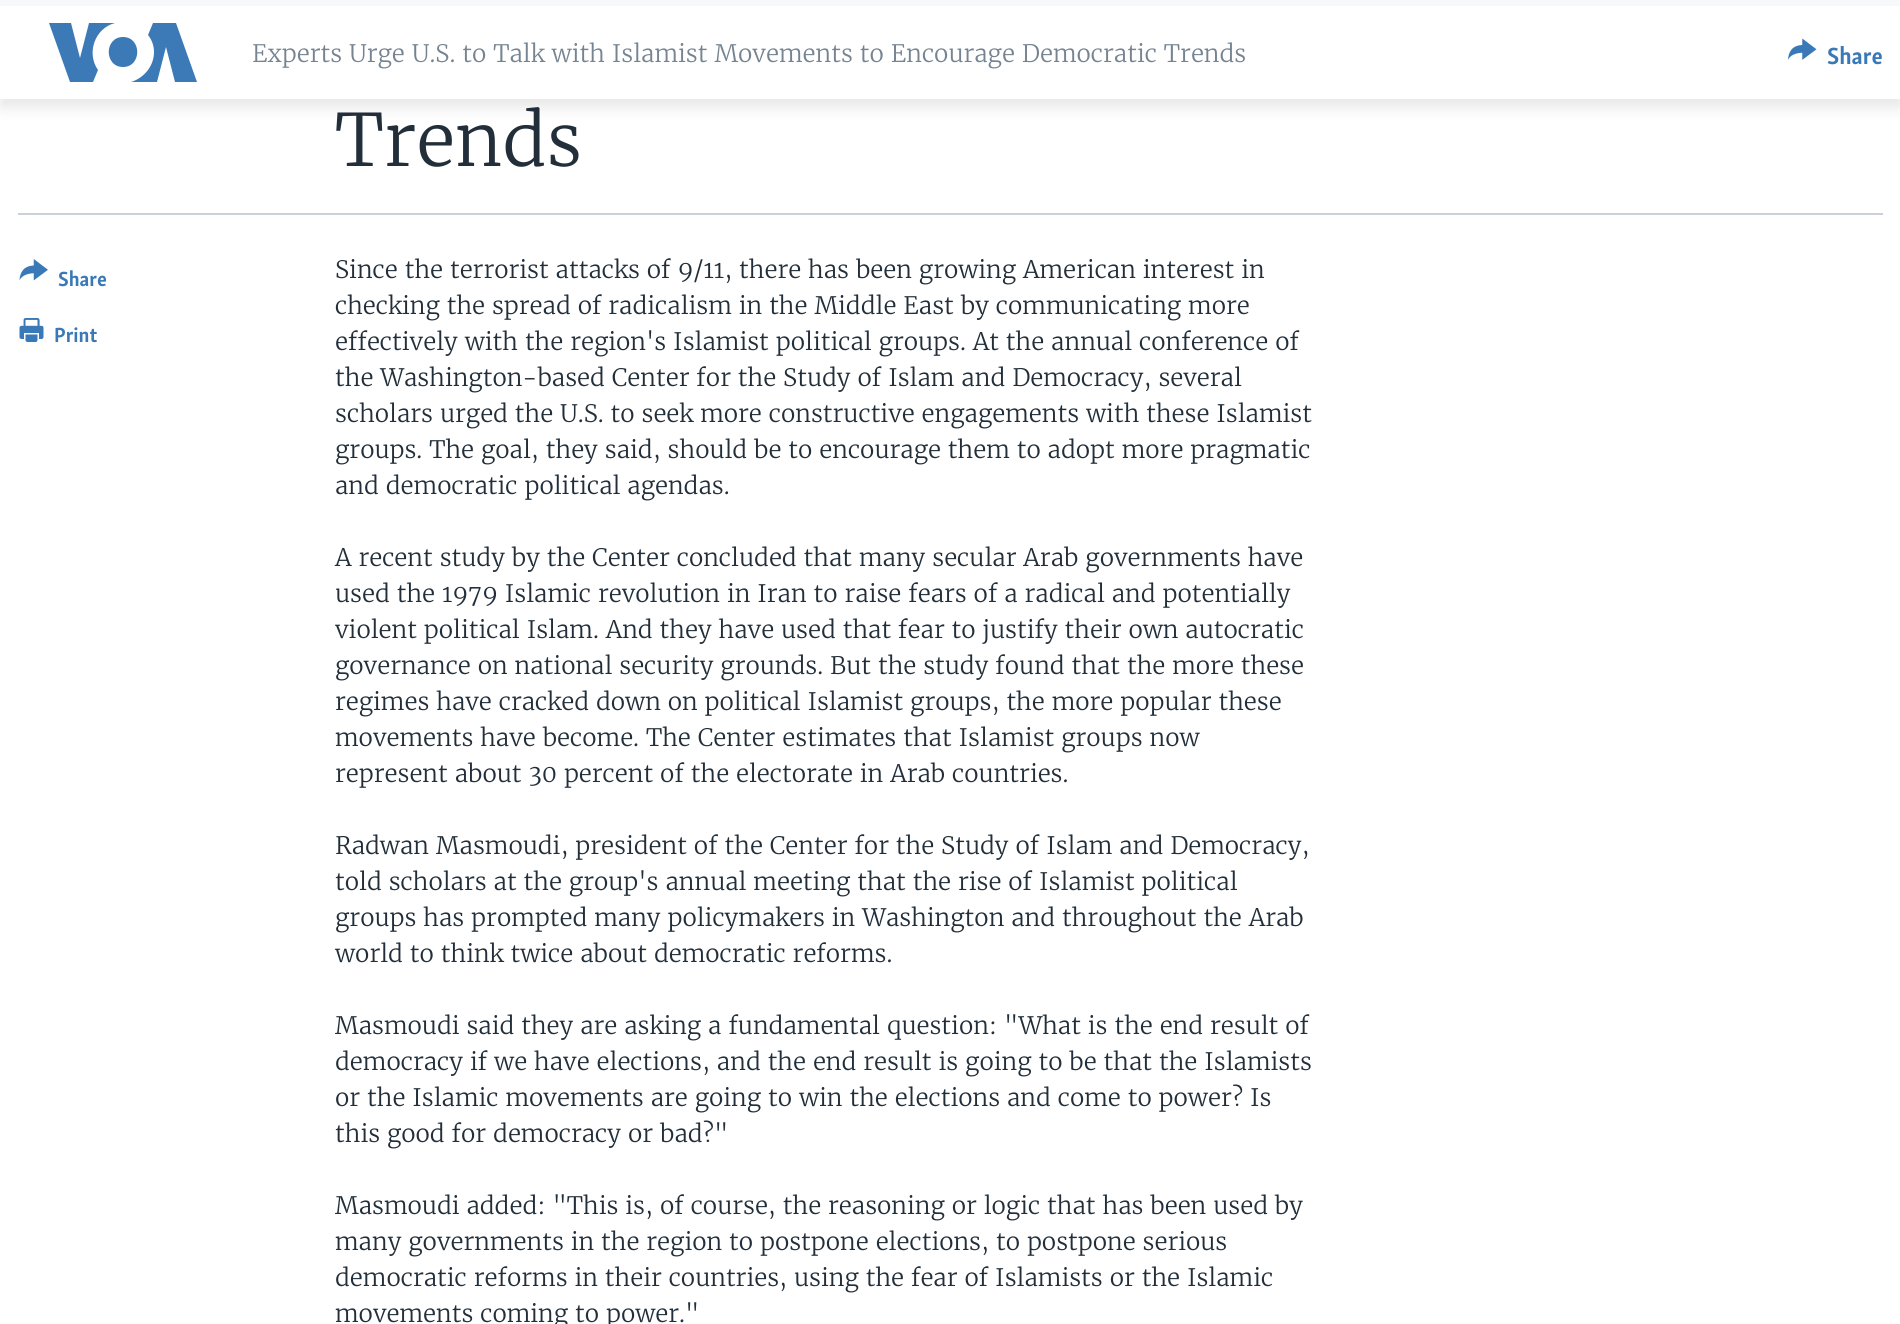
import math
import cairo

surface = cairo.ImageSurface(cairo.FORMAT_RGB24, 1900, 1324)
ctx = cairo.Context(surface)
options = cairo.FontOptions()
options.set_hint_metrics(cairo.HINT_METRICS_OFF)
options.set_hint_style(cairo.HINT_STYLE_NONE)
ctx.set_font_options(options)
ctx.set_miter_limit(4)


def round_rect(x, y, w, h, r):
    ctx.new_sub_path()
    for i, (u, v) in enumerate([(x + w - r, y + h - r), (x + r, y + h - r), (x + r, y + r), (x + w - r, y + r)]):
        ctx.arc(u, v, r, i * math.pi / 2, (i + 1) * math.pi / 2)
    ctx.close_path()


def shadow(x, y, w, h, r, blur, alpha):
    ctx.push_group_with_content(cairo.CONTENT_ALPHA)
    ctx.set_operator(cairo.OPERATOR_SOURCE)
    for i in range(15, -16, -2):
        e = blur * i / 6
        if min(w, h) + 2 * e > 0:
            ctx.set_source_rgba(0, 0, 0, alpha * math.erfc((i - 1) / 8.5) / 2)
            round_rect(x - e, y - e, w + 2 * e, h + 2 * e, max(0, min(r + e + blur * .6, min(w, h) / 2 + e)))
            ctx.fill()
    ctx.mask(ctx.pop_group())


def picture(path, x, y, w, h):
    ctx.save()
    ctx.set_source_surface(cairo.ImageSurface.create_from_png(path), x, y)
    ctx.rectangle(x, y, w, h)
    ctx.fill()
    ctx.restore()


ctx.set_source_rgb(1, 1, 1)
ctx.paint()
ctx.set_source_rgb(0, 0, 0)
shadow(0, 8, 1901, 99, 0, 7.5, 0.1)
ctx.set_source_rgb(1, 1, 1)
ctx.rectangle(0, 6, 1900, 93)
ctx.fill()
ctx.set_source_rgb(0.965, 0.969, 0.973)
ctx.rectangle(0, 0, 1900, 6)
ctx.fill()
ctx.set_source_rgb(0.231, 0.475, 0.718)
ctx.new_path()
ctx.move_to(98, 70)
ctx.line_to(93, 82)
ctx.line_to(70, 82)
ctx.line_to(49, 23)
ctx.line_to(71, 23)
ctx.line_to(80, 58)
ctx.line_to(89, 23)
ctx.line_to(115, 23)
ctx.curve_to(95, 28, 86, 53, 98, 70)
ctx.close_path()
ctx.move_to(123, 37)
ctx.curve_to(104, 37, 104, 67, 123, 67)
ctx.curve_to(142, 67, 142, 37, 123, 37)
ctx.close_path()
ctx.move_to(154, 52)
ctx.curve_to(154, 66, 144, 78, 131, 82)
ctx.line_to(157, 82)
ctx.line_to(166, 47)
ctx.line_to(175, 82)
ctx.line_to(197, 82)
ctx.line_to(176, 23)
ctx.line_to(153, 23)
ctx.line_to(148, 35)
ctx.curve_to(152, 40, 154, 46, 154, 52)
ctx.close_path()
ctx.fill()
ctx.select_font_face("Merriweather Light")
ctx.set_font_size(24)
ctx.set_source_rgb(0.463, 0.518, 0.573)
ctx.move_to(252, 62)
ctx.show_text("Experts Urge U.S. to Talk with Islamist Movements to Encourage Democratic Trends")
picture("img1.png", 1788, 38, 29, 22)
ctx.select_font_face("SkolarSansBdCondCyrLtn", cairo.FONT_SLANT_NORMAL, cairo.FONT_WEIGHT_BOLD)
ctx.set_source_rgb(0.227, 0.475, 0.718)
ctx.move_to(1827, 64)
ctx.show_text("Share")
ctx.select_font_face("Merriweather Light")
ctx.set_font_size(72)
ctx.set_source_rgb(0.133, 0.184, 0.227)
ctx.move_to(335, 166)
ctx.show_text("Trends")
ctx.set_source_rgb(0.796, 0.82, 0.839)
ctx.rectangle(18, 213, 1865, 2)
ctx.fill()
picture("img2.png", 19, 259, 29, 22)
ctx.select_font_face("SkolarSansBdCondCyrLtn", cairo.FONT_SLANT_NORMAL, cairo.FONT_WEIGHT_BOLD)
ctx.set_font_size(21)
ctx.set_source_rgb(0.227, 0.475, 0.718)
ctx.move_to(58, 286)
ctx.show_text("Share")
picture("img3.png", 19, 318, 25, 24)
ctx.move_to(54, 342)
ctx.show_text("Print")
ctx.select_font_face("Merriweather Light")
ctx.set_font_size(24)
ctx.set_source_rgb(0.133, 0.184, 0.227)
ctx.move_to(335, 278)
ctx.show_text("Since the terrorist attacks of 9/11, there has been growing American interest in")
ctx.move_to(335, 314)
ctx.show_text("checking the spread of radicalism in the Middle East by communicating more")
ctx.move_to(335, 350)
ctx.show_text("effectively with the region's Islamist political groups. At the annual conference of")
ctx.move_to(335, 386)
ctx.show_text("the Washington-based Center for the Study of Islam and Democracy, several")
ctx.move_to(335, 422)
ctx.show_text("scholars urged the U.S. to seek more constructive engagements with these Islamist")
ctx.move_to(335, 458)
ctx.show_text("groups. The goal, they said, should be to encourage them to adopt more pragmatic")
ctx.move_to(335, 494)
ctx.show_text("and democratic political agendas.")
ctx.move_to(335, 566)
ctx.show_text("A recent study by the Center concluded that many secular Arab governments have")
ctx.move_to(335, 602)
ctx.show_text("used the 1979 Islamic revolution in Iran to raise fears of a radical and potentially")
ctx.move_to(335, 638)
ctx.show_text("violent political Islam. And they have used that fear to justify their own autocratic")
ctx.move_to(335, 674)
ctx.show_text("governance on national security grounds. But the study found that the more these")
ctx.move_to(335, 710)
ctx.show_text("regimes have cracked down on political Islamist groups, the more popular these")
ctx.move_to(335, 746)
ctx.show_text("movements have become. The Center estimates that Islamist groups now")
ctx.move_to(335, 782)
ctx.show_text("represent about 30 percent of the electorate in Arab countries.")
ctx.move_to(335, 854)
ctx.show_text("Radwan Masmoudi, president of the Center for the Study of Islam and Democracy,")
ctx.move_to(335, 890)
ctx.show_text("told scholars at the group's annual meeting that the rise of Islamist political")
ctx.move_to(335, 926)
ctx.show_text("groups has prompted many policymakers in Washington and throughout the Arab")
ctx.move_to(335, 962)
ctx.show_text("world to think twice about democratic reforms.")
ctx.move_to(335, 1034)
ctx.show_text("Masmoudi said they are asking a fundamental question: \"What is the end result of")
ctx.move_to(335, 1070)
ctx.show_text("democracy if we have elections, and the end result is going to be that the Islamists")
ctx.move_to(335, 1106)
ctx.show_text("or the Islamic movements are going to win the elections and come to power? Is")
ctx.move_to(335, 1142)
ctx.show_text("this good for democracy or bad?\"")
ctx.move_to(335, 1214)
ctx.show_text("Masmoudi added: \"This is, of course, the reasoning or logic that has been used by")
ctx.move_to(335, 1250)
ctx.show_text("many governments in the region to postpone elections, to postpone serious")
ctx.move_to(335, 1286)
ctx.show_text("democratic reforms in their countries, using the fear of Islamists or the Islamic")
ctx.move_to(335, 1322)
ctx.show_text("movements coming to power.\"")
surface.write_to_png("page.png")
